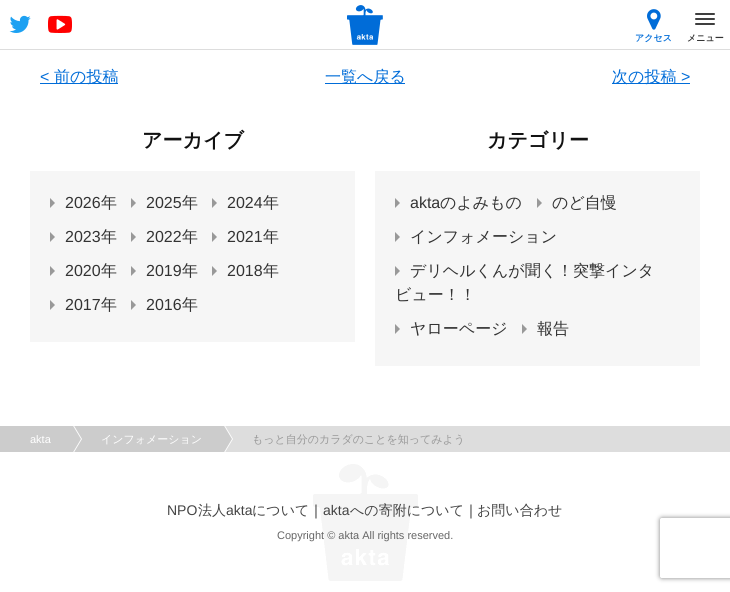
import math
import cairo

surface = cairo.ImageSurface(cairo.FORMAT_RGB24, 730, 592)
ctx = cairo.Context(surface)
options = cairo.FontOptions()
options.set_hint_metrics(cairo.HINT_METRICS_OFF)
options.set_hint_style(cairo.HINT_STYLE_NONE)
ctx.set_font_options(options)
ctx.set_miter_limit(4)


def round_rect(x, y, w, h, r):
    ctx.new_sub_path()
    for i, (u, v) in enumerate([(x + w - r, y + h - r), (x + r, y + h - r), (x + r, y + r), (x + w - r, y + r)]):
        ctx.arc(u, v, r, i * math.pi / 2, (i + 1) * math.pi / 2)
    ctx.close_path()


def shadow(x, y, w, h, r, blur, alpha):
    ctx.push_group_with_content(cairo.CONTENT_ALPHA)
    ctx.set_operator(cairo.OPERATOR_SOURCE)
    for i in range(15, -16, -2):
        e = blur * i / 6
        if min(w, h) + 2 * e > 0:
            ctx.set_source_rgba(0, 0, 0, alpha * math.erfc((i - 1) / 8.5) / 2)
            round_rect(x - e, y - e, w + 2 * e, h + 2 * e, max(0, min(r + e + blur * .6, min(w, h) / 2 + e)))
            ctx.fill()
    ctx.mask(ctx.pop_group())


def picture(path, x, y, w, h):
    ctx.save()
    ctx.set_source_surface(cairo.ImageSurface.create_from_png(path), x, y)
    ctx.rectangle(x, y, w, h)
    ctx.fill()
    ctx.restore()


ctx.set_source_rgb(1, 1, 1)
ctx.paint()
ctx.set_source_rgb(0.867, 0.867, 0.867)
ctx.rectangle(0, 49, 730, 1)
ctx.fill()
picture("img1.png", 9, 15, 22, 18)
picture("img2.png", 48, 15, 24, 18)
picture("img3.png", 347, 5, 36, 40)
picture("img4.png", 647, 9, 14, 21)
ctx.select_font_face("WenQuanYi Zen Hei", cairo.FONT_SLANT_NORMAL, cairo.FONT_WEIGHT_BOLD)
ctx.set_font_size(9)
ctx.set_source_rgb(0, 0.424, 0.847)
ctx.move_to(635, 41)
ctx.show_text("アクセス")
ctx.set_source_rgb(0.247, 0.247, 0.247)
round_rect(695, 13, 20, 2, 1)
ctx.fill()
round_rect(695, 18, 20, 2, 1)
ctx.fill()
round_rect(695, 23, 20, 2, 1)
ctx.fill()
ctx.set_source_rgb(0.2, 0.2, 0.2)
ctx.move_to(687, 41)
ctx.show_text("メニュー")
ctx.select_font_face("Liberation Sans")
ctx.set_font_size(16)
ctx.set_source_rgb(0, 0.424, 0.847)
ctx.move_to(40, 82)
ctx.show_text("<")
ctx.rectangle(40, 83, 78, 1)
ctx.fill()
ctx.select_font_face("WenQuanYi Zen Hei Medium")
ctx.move_to(54, 82)
ctx.show_text("前の投稿")
ctx.rectangle(325, 83, 80, 1)
ctx.fill()
ctx.move_to(325, 82)
ctx.show_text("一覧へ戻る")
ctx.rectangle(612, 83, 78, 1)
ctx.fill()
ctx.move_to(612, 82)
ctx.show_text("次の投稿")
ctx.select_font_face("Liberation Sans")
ctx.move_to(681, 82)
ctx.show_text(">")
ctx.select_font_face("WenQuanYi Zen Hei", cairo.FONT_SLANT_NORMAL, cairo.FONT_WEIGHT_BOLD)
ctx.set_font_size(20)
ctx.set_source_rgb(0.067, 0.067, 0.067)
ctx.move_to(142, 147)
ctx.show_text("アーカイブ")
ctx.set_source_rgb(0.961, 0.961, 0.961)
ctx.rectangle(30, 171, 325, 171)
ctx.fill()
ctx.set_source_rgb(0.6, 0.6, 0.6)
ctx.new_path()
ctx.move_to(50, 208)
ctx.line_to(50, 198)
ctx.line_to(55, 203)
ctx.close_path()
ctx.fill()
ctx.select_font_face("Liberation Sans")
ctx.set_font_size(16)
ctx.set_source_rgb(0.2, 0.2, 0.2)
ctx.move_to(65, 208)
ctx.show_text("2026")
ctx.select_font_face("WenQuanYi Zen Hei Medium")
ctx.move_to(101, 208)
ctx.show_text("年")
ctx.set_source_rgb(0.6, 0.6, 0.6)
ctx.new_path()
ctx.move_to(131, 208)
ctx.line_to(131, 198)
ctx.line_to(136, 203)
ctx.close_path()
ctx.fill()
ctx.select_font_face("Liberation Sans")
ctx.set_source_rgb(0.2, 0.2, 0.2)
ctx.move_to(146, 208)
ctx.show_text("2025")
ctx.select_font_face("WenQuanYi Zen Hei Medium")
ctx.move_to(182, 208)
ctx.show_text("年")
ctx.set_source_rgb(0.6, 0.6, 0.6)
ctx.new_path()
ctx.move_to(212, 208)
ctx.line_to(212, 198)
ctx.line_to(217, 203)
ctx.close_path()
ctx.fill()
ctx.select_font_face("Liberation Sans")
ctx.set_source_rgb(0.2, 0.2, 0.2)
ctx.move_to(227, 208)
ctx.show_text("2024")
ctx.select_font_face("WenQuanYi Zen Hei Medium")
ctx.move_to(263, 208)
ctx.show_text("年")
ctx.set_source_rgb(0.6, 0.6, 0.6)
ctx.new_path()
ctx.move_to(50, 242)
ctx.line_to(50, 232)
ctx.line_to(55, 237)
ctx.close_path()
ctx.fill()
ctx.select_font_face("Liberation Sans")
ctx.set_source_rgb(0.2, 0.2, 0.2)
ctx.move_to(65, 242)
ctx.show_text("2023")
ctx.select_font_face("WenQuanYi Zen Hei Medium")
ctx.move_to(101, 242)
ctx.show_text("年")
ctx.set_source_rgb(0.6, 0.6, 0.6)
ctx.new_path()
ctx.move_to(131, 242)
ctx.line_to(131, 232)
ctx.line_to(136, 237)
ctx.close_path()
ctx.fill()
ctx.select_font_face("Liberation Sans")
ctx.set_source_rgb(0.2, 0.2, 0.2)
ctx.move_to(146, 242)
ctx.show_text("2022")
ctx.select_font_face("WenQuanYi Zen Hei Medium")
ctx.move_to(182, 242)
ctx.show_text("年")
ctx.set_source_rgb(0.6, 0.6, 0.6)
ctx.new_path()
ctx.move_to(212, 242)
ctx.line_to(212, 232)
ctx.line_to(217, 237)
ctx.close_path()
ctx.fill()
ctx.select_font_face("Liberation Sans")
ctx.set_source_rgb(0.2, 0.2, 0.2)
ctx.move_to(227, 242)
ctx.show_text("2021")
ctx.select_font_face("WenQuanYi Zen Hei Medium")
ctx.move_to(263, 242)
ctx.show_text("年")
ctx.set_source_rgb(0.6, 0.6, 0.6)
ctx.new_path()
ctx.move_to(50, 276)
ctx.line_to(50, 266)
ctx.line_to(55, 271)
ctx.close_path()
ctx.fill()
ctx.select_font_face("Liberation Sans")
ctx.set_source_rgb(0.2, 0.2, 0.2)
ctx.move_to(65, 276)
ctx.show_text("2020")
ctx.select_font_face("WenQuanYi Zen Hei Medium")
ctx.move_to(101, 276)
ctx.show_text("年")
ctx.set_source_rgb(0.6, 0.6, 0.6)
ctx.new_path()
ctx.move_to(131, 276)
ctx.line_to(131, 266)
ctx.line_to(136, 271)
ctx.close_path()
ctx.fill()
ctx.select_font_face("Liberation Sans")
ctx.set_source_rgb(0.2, 0.2, 0.2)
ctx.move_to(146, 276)
ctx.show_text("2019")
ctx.select_font_face("WenQuanYi Zen Hei Medium")
ctx.move_to(182, 276)
ctx.show_text("年")
ctx.set_source_rgb(0.6, 0.6, 0.6)
ctx.new_path()
ctx.move_to(212, 276)
ctx.line_to(212, 266)
ctx.line_to(217, 271)
ctx.close_path()
ctx.fill()
ctx.select_font_face("Liberation Sans")
ctx.set_source_rgb(0.2, 0.2, 0.2)
ctx.move_to(227, 276)
ctx.show_text("2018")
ctx.select_font_face("WenQuanYi Zen Hei Medium")
ctx.move_to(263, 276)
ctx.show_text("年")
ctx.set_source_rgb(0.6, 0.6, 0.6)
ctx.new_path()
ctx.move_to(50, 310)
ctx.line_to(50, 300)
ctx.line_to(55, 305)
ctx.close_path()
ctx.fill()
ctx.select_font_face("Liberation Sans")
ctx.set_source_rgb(0.2, 0.2, 0.2)
ctx.move_to(65, 310)
ctx.show_text("2017")
ctx.select_font_face("WenQuanYi Zen Hei Medium")
ctx.move_to(101, 310)
ctx.show_text("年")
ctx.set_source_rgb(0.6, 0.6, 0.6)
ctx.new_path()
ctx.move_to(131, 310)
ctx.line_to(131, 300)
ctx.line_to(136, 305)
ctx.close_path()
ctx.fill()
ctx.select_font_face("Liberation Sans")
ctx.set_source_rgb(0.2, 0.2, 0.2)
ctx.move_to(146, 310)
ctx.show_text("2016")
ctx.select_font_face("WenQuanYi Zen Hei Medium")
ctx.move_to(182, 310)
ctx.show_text("年")
ctx.select_font_face("WenQuanYi Zen Hei", cairo.FONT_SLANT_NORMAL, cairo.FONT_WEIGHT_BOLD)
ctx.set_font_size(20)
ctx.set_source_rgb(0.067, 0.067, 0.067)
ctx.move_to(487, 147)
ctx.show_text("カテゴリー")
ctx.set_source_rgb(0.961, 0.961, 0.961)
ctx.rectangle(375, 171, 325, 195)
ctx.fill()
ctx.set_source_rgb(0.6, 0.6, 0.6)
ctx.new_path()
ctx.move_to(395, 208)
ctx.line_to(395, 198)
ctx.line_to(400, 203)
ctx.close_path()
ctx.fill()
ctx.select_font_face("Liberation Sans")
ctx.set_font_size(16)
ctx.set_source_rgb(0.2, 0.2, 0.2)
ctx.move_to(410, 208)
ctx.show_text("akta")
ctx.select_font_face("WenQuanYi Zen Hei Medium")
ctx.move_to(440, 208)
ctx.show_text("のよみもの")
ctx.set_source_rgb(0.6, 0.6, 0.6)
ctx.new_path()
ctx.move_to(537, 208)
ctx.line_to(537, 198)
ctx.line_to(542, 203)
ctx.close_path()
ctx.fill()
ctx.set_source_rgb(0.2, 0.2, 0.2)
ctx.move_to(552, 208)
ctx.show_text("のど自慢")
ctx.set_source_rgb(0.6, 0.6, 0.6)
ctx.new_path()
ctx.move_to(395, 242)
ctx.line_to(395, 232)
ctx.line_to(400, 237)
ctx.close_path()
ctx.fill()
ctx.set_source_rgb(0.2, 0.2, 0.2)
ctx.move_to(410, 242)
ctx.show_text("インフォメーション")
ctx.set_source_rgb(0.6, 0.6, 0.6)
ctx.new_path()
ctx.move_to(395, 276)
ctx.line_to(395, 266)
ctx.line_to(400, 271)
ctx.close_path()
ctx.fill()
ctx.set_source_rgb(0.2, 0.2, 0.2)
ctx.move_to(410, 276)
ctx.show_text("デリヘルくんが聞く！突撃インタ")
ctx.move_to(395, 300)
ctx.show_text("ビュー！！")
ctx.set_source_rgb(0.6, 0.6, 0.6)
ctx.new_path()
ctx.move_to(395, 334)
ctx.line_to(395, 324)
ctx.line_to(400, 329)
ctx.close_path()
ctx.fill()
ctx.set_source_rgb(0.2, 0.2, 0.2)
ctx.move_to(410, 334)
ctx.show_text("ヤローページ")
ctx.set_source_rgb(0.6, 0.6, 0.6)
ctx.new_path()
ctx.move_to(522, 334)
ctx.line_to(522, 324)
ctx.line_to(527, 329)
ctx.close_path()
ctx.fill()
ctx.set_source_rgb(0.2, 0.2, 0.2)
ctx.move_to(537, 334)
ctx.show_text("報告")
ctx.set_source_rgb(0.867, 0.867, 0.867)
ctx.rectangle(225, 426, 505, 26)
ctx.fill()
ctx.set_source_rgb(0.8, 0.8, 0.8)
ctx.rectangle(0, 426, 51, 26)
ctx.fill()
ctx.rectangle(74, 426, 128, 26)
ctx.fill()
ctx.save()
ctx.rectangle(0, 426, 730, 26)
ctx.clip()
ctx.set_source_rgb(1, 1, 1)
ctx.new_path()
ctx.move_to(52, 489)
ctx.line_to(52, 389)
ctx.line_to(82, 439)
ctx.close_path()
ctx.fill()
ctx.set_source_rgb(0.8, 0.8, 0.8)
ctx.new_path()
ctx.move_to(51, 489)
ctx.line_to(51, 389)
ctx.line_to(81, 439)
ctx.close_path()
ctx.fill()
ctx.restore()
ctx.select_font_face("Liberation Sans")
ctx.set_font_size(11)
ctx.set_source_rgb(1, 1, 1)
ctx.move_to(30, 443)
ctx.show_text("akta")
ctx.save()
ctx.rectangle(0, 426, 730, 26)
ctx.clip()
ctx.new_path()
ctx.move_to(203, 489)
ctx.line_to(203, 389)
ctx.line_to(233, 439)
ctx.close_path()
ctx.fill()
ctx.set_source_rgb(0.8, 0.8, 0.8)
ctx.new_path()
ctx.move_to(202, 489)
ctx.line_to(202, 389)
ctx.line_to(232, 439)
ctx.close_path()
ctx.fill()
ctx.restore()
ctx.select_font_face("WenQuanYi Zen Hei Medium")
ctx.move_to(101, 443)
ctx.show_text("インフォメーション")
ctx.set_source_rgb(0.6, 0.6, 0.6)
ctx.move_to(252, 443)
ctx.show_text("もっと自分のカラダのことを知ってみよう")
picture("img5.png", 313, 464, 105, 117)
ctx.select_font_face("Liberation Sans")
ctx.set_font_size(14)
ctx.set_source_rgb(0.267, 0.267, 0.267)
ctx.move_to(167, 515)
ctx.show_text("NPO")
ctx.select_font_face("WenQuanYi Zen Hei Medium")
ctx.move_to(198, 515)
ctx.show_text("法人")
ctx.select_font_face("Liberation Sans")
ctx.move_to(226, 515)
ctx.show_text("akta")
ctx.select_font_face("WenQuanYi Zen Hei Medium")
ctx.move_to(252, 515)
ctx.show_text("について")
ctx.set_source_rgb(0.067, 0.067, 0.067)
ctx.move_to(309, 515)
ctx.show_text("｜")
ctx.select_font_face("Liberation Sans")
ctx.set_source_rgb(0.267, 0.267, 0.267)
ctx.move_to(323, 515)
ctx.show_text("akta")
ctx.select_font_face("WenQuanYi Zen Hei Medium")
ctx.move_to(350, 515)
ctx.show_text("への寄附について")
ctx.set_source_rgb(0.067, 0.067, 0.067)
ctx.move_to(464, 515)
ctx.show_text("｜")
ctx.set_source_rgb(0.267, 0.267, 0.267)
ctx.move_to(477, 515)
ctx.show_text("お問い合わせ")
ctx.select_font_face("Liberation Sans")
ctx.set_font_size(11)
ctx.set_source_rgb(0.4, 0.4, 0.4)
ctx.move_to(277, 539)
ctx.show_text("Copyright © akta All rights reserved.")
ctx.save()
ctx.set_fill_rule(cairo.FILL_RULE_EVEN_ODD)
ctx.new_path()
ctx.move_to(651, 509)
ctx.line_to(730, 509)
ctx.line_to(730, 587)
ctx.line_to(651, 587)
ctx.close_path()
ctx.move_to(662, 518)
ctx.line_to(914, 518)
ctx.curve_to(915, 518, 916, 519, 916, 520)
ctx.line_to(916, 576)
ctx.curve_to(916, 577, 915, 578, 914, 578)
ctx.line_to(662, 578)
ctx.curve_to(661, 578, 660, 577, 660, 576)
ctx.line_to(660, 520)
ctx.curve_to(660, 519, 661, 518, 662, 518)
ctx.close_path()
ctx.clip()
ctx.set_source_rgb(0.502, 0.502, 0.502)
shadow(660, 518, 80, 60, 2, 2.5, 1)
ctx.restore()
surface.write_to_png("page.png")
